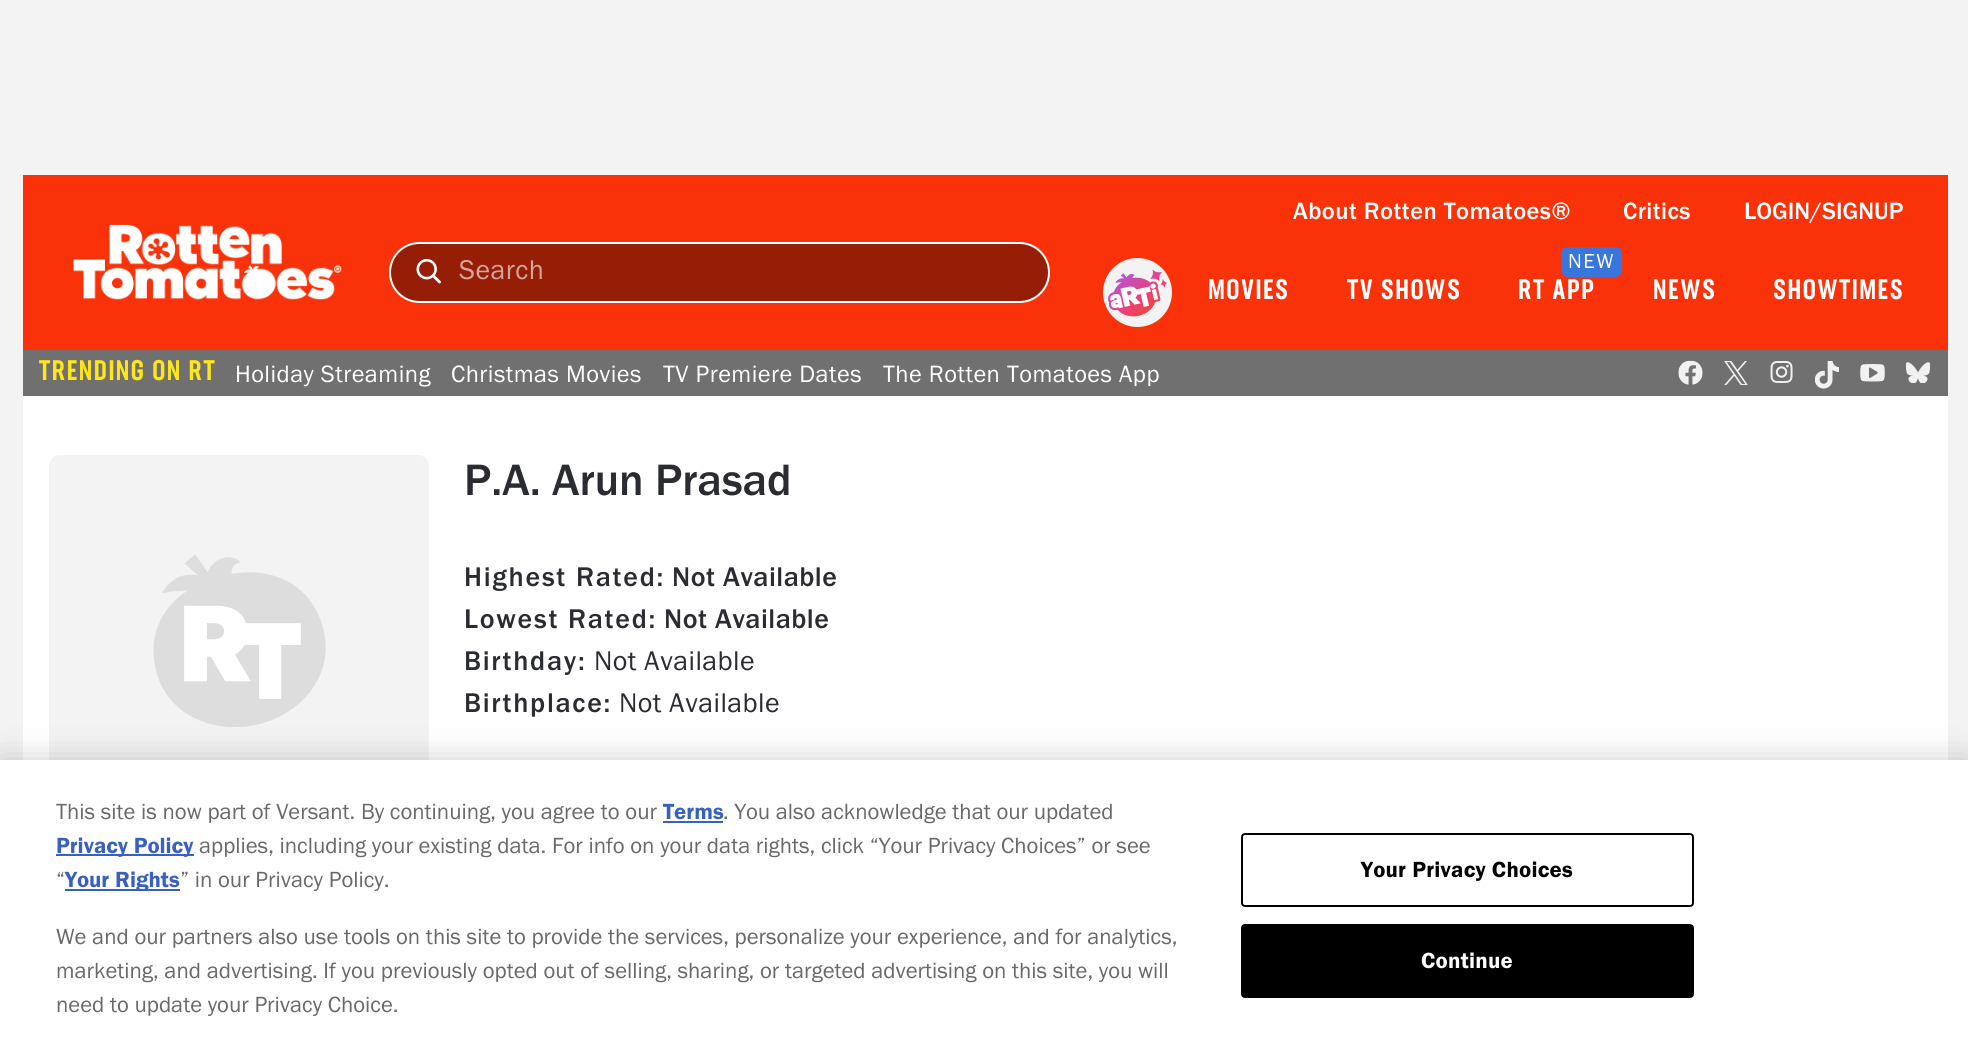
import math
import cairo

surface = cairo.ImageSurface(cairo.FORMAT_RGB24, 1968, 1062)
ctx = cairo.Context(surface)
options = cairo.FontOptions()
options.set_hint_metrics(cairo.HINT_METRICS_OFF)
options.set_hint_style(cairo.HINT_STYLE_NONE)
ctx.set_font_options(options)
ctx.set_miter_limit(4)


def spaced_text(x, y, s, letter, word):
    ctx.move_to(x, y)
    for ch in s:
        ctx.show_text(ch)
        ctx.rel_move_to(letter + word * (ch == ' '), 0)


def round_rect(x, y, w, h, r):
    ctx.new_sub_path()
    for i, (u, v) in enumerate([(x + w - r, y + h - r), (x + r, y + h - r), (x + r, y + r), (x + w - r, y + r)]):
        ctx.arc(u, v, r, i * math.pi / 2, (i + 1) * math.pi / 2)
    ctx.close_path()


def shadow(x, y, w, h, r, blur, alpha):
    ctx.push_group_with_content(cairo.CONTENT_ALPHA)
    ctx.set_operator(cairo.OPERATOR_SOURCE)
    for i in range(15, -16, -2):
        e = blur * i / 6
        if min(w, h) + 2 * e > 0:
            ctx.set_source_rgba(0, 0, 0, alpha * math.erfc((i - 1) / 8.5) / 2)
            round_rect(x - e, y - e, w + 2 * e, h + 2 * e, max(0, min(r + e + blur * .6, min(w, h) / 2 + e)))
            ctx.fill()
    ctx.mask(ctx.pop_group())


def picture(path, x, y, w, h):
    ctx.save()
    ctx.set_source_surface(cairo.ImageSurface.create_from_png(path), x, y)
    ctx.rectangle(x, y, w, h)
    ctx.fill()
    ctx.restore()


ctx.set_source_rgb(0.953, 0.953, 0.953)
ctx.paint()
ctx.set_source_rgb(0.98, 0.196, 0.039)
ctx.rectangle(23, 175, 1925, 175)
ctx.fill()
picture("img1.png", 73, 224, 269, 76)
ctx.set_source_rgb(0.588, 0.118, 0.024)
round_rect(390, 243, 659, 59, 29.5)
ctx.fill_preserve()
ctx.set_source_rgb(1, 1, 1)
ctx.stroke()
picture("img2.png", 416, 259, 25, 25)
ctx.select_font_face("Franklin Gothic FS")
ctx.set_font_size(28)
ctx.set_source_rgb(0.835, 0.647, 0.608)
spaced_text(459, 279, "Search", 0.45, 0)
ctx.select_font_face("Franklin Gothic FS Medium")
ctx.set_font_size(24.5)
ctx.set_source_rgb(1, 1, 1)
spaced_text(1293, 219, "About Rotten Tomatoes®", 0.45, 0)
spaced_text(1623, 219, "Critics", 0.45, 0)
ctx.move_to(1744, 219)
ctx.show_text("LOGIN/SIGNUP")
ctx.set_source_rgb(0.953, 0.953, 0.953)
ctx.new_path()
ctx.arc(1137.5, 292.5, 36.5, 0, 2 * math.pi)
ctx.fill_preserve()
ctx.set_source_rgb(0.98, 0.196, 0.039)
ctx.set_line_width(4)
ctx.stroke()
picture("img3.png", 1108, 269, 59, 48)
ctx.select_font_face("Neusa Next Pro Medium")
ctx.set_font_size(28)
ctx.set_source_rgb(1, 1, 1)
spaced_text(1208, 299, "MOVIES", 1.5, 0)
spaced_text(1347, 299, "TV SHOWS", 1.5, 0)
ctx.set_source_rgb(0.224, 0.463, 0.863)
round_rect(1561, 247, 61, 30, 7)
ctx.fill()
ctx.select_font_face("Franklin Gothic FS")
ctx.set_font_size(21)
ctx.set_source_rgb(1, 1, 1)
spaced_text(1568, 268, "NEW", 1.5, 0)
ctx.select_font_face("Neusa Next Pro Medium")
ctx.set_font_size(28)
spaced_text(1518, 299, "RT APP", 1.5, 0)
spaced_text(1653, 299, "NEWS", 1.5, 0)
spaced_text(1773, 299, "SHOWTIMES", 1.5, 0)
ctx.set_source_rgb(0.439, 0.439, 0.439)
ctx.rectangle(23, 350, 1925, 46)
ctx.fill()
ctx.set_source_rgb(0.996, 0.902, 0.094)
spaced_text(39, 380, "TRENDING ON RT", 1.5, 0)
ctx.select_font_face("Franklin Gothic FS")
ctx.set_font_size(24.5)
ctx.set_source_rgb(1, 1, 1)
spaced_text(235, 382, "Holiday Streaming", 0.45, 0)
spaced_text(451, 382, "Christmas Movies", 0.45, 0)
spaced_text(663, 382, "TV Premiere Dates", 0.45, 0)
spaced_text(883, 382, "The Rotten Tomatoes App", 0.45, 0)
picture("img4.png", 1678, 360, 25, 25)
picture("img5.png", 1724, 361, 24, 24)
picture("img6.png", 1770, 361, 23, 22)
picture("img7.png", 1815, 361, 24, 28)
picture("img8.png", 1860, 364, 25, 18)
picture("img9.png", 1906, 362, 24, 21)
ctx.rectangle(23, 396, 1925, 364)
ctx.fill()
ctx.set_source_rgb(0.953, 0.953, 0.953)
round_rect(49, 455, 380, 390, 11)
ctx.fill()
picture("img10.png", 153, 554, 173, 173)
ctx.select_font_face("Franklin Gothic FS Medium")
ctx.set_font_size(45.5)
ctx.set_source_rgb(0.165, 0.173, 0.196)
ctx.move_to(464, 495)
ctx.show_text("P.A. Arun Prasad")
ctx.set_font_size(28)
spaced_text(464, 586, "Highest Rated:", 1.75, 0)
spaced_text(672, 586, "Not Available", 0.5, 0)
spaced_text(464, 628, "Lowest Rated:", 1.75, 0)
spaced_text(664, 628, "Not Available", 0.5, 0)
spaced_text(464, 670, "Birthday:", 1.75, 0)
ctx.select_font_face("Franklin Gothic FS")
spaced_text(594, 670, "Not Available", 0.45, 0)
ctx.select_font_face("Franklin Gothic FS Medium")
spaced_text(464, 712, "Birthplace:", 1.75, 0)
ctx.select_font_face("Franklin Gothic FS")
spaced_text(619, 712, "Not Available", 0.45, 0)
ctx.set_source_rgb(0, 0, 0)
shadow(0, 760, 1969, 302, 0, 16, 0.2)
ctx.set_source_rgb(1, 1, 1)
ctx.rectangle(0, 760, 1968, 302)
ctx.fill()
ctx.set_font_size(22.75)
ctx.set_source_rgb(0.412, 0.412, 0.412)
ctx.move_to(56, 819)
ctx.show_text("This site is now part of Versant. By continuing, you agree to our")
ctx.select_font_face("Franklin Gothic FS SemiBold")
ctx.set_source_rgb(0.22, 0.376, 0.745)
ctx.move_to(663, 819)
ctx.show_text("Terms")
ctx.rectangle(663, 821, 60, 2)
ctx.fill()
ctx.select_font_face("Franklin Gothic FS")
ctx.set_source_rgb(0.412, 0.412, 0.412)
ctx.move_to(723, 819)
ctx.show_text(". You also acknowledge that our updated")
ctx.set_source_rgb(0.22, 0.376, 0.745)
ctx.rectangle(56, 854, 138, 2)
ctx.fill()
ctx.select_font_face("Franklin Gothic FS SemiBold")
ctx.move_to(56, 853)
ctx.show_text("Privacy Policy")
ctx.select_font_face("Franklin Gothic FS")
ctx.set_source_rgb(0.412, 0.412, 0.412)
ctx.move_to(199, 853)
ctx.show_text("applies, including your existing data. For info on your data rights, click “Your Privacy Choices” or see")
ctx.move_to(56, 887)
ctx.show_text("“")
ctx.set_source_rgb(0.22, 0.376, 0.745)
ctx.rectangle(65, 889, 115, 2)
ctx.fill()
ctx.select_font_face("Franklin Gothic FS SemiBold")
ctx.move_to(65, 887)
ctx.show_text("Your Rights")
ctx.select_font_face("Franklin Gothic FS")
ctx.set_source_rgb(0.412, 0.412, 0.412)
ctx.move_to(180, 887)
ctx.show_text("” in our Privacy Policy.")
ctx.move_to(56, 944)
ctx.show_text("We and our partners also use tools on this site to provide the services, personalize your experience, and for analytics,")
ctx.move_to(56, 978)
ctx.show_text("marketing, and advertising. If you previously opted out of selling, sharing, or targeted advertising on this site, you will")
ctx.move_to(56, 1012)
ctx.show_text("need to update your Privacy Choice.")
round_rect(1242, 834, 451, 72, 3)
ctx.set_source_rgb(0, 0, 0)
ctx.set_line_width(2)
ctx.stroke()
ctx.select_font_face("Franklin Gothic FS SemiBold")
spaced_text(1361, 877, "Your Privacy Choices", 0.25, 0)
round_rect(1242, 925, 451, 72, 3)
ctx.fill_preserve()
ctx.stroke()
ctx.set_source_rgb(1, 1, 1)
spaced_text(1421, 968, "Continue", 0.25, 0)
surface.write_to_png("page.png")
